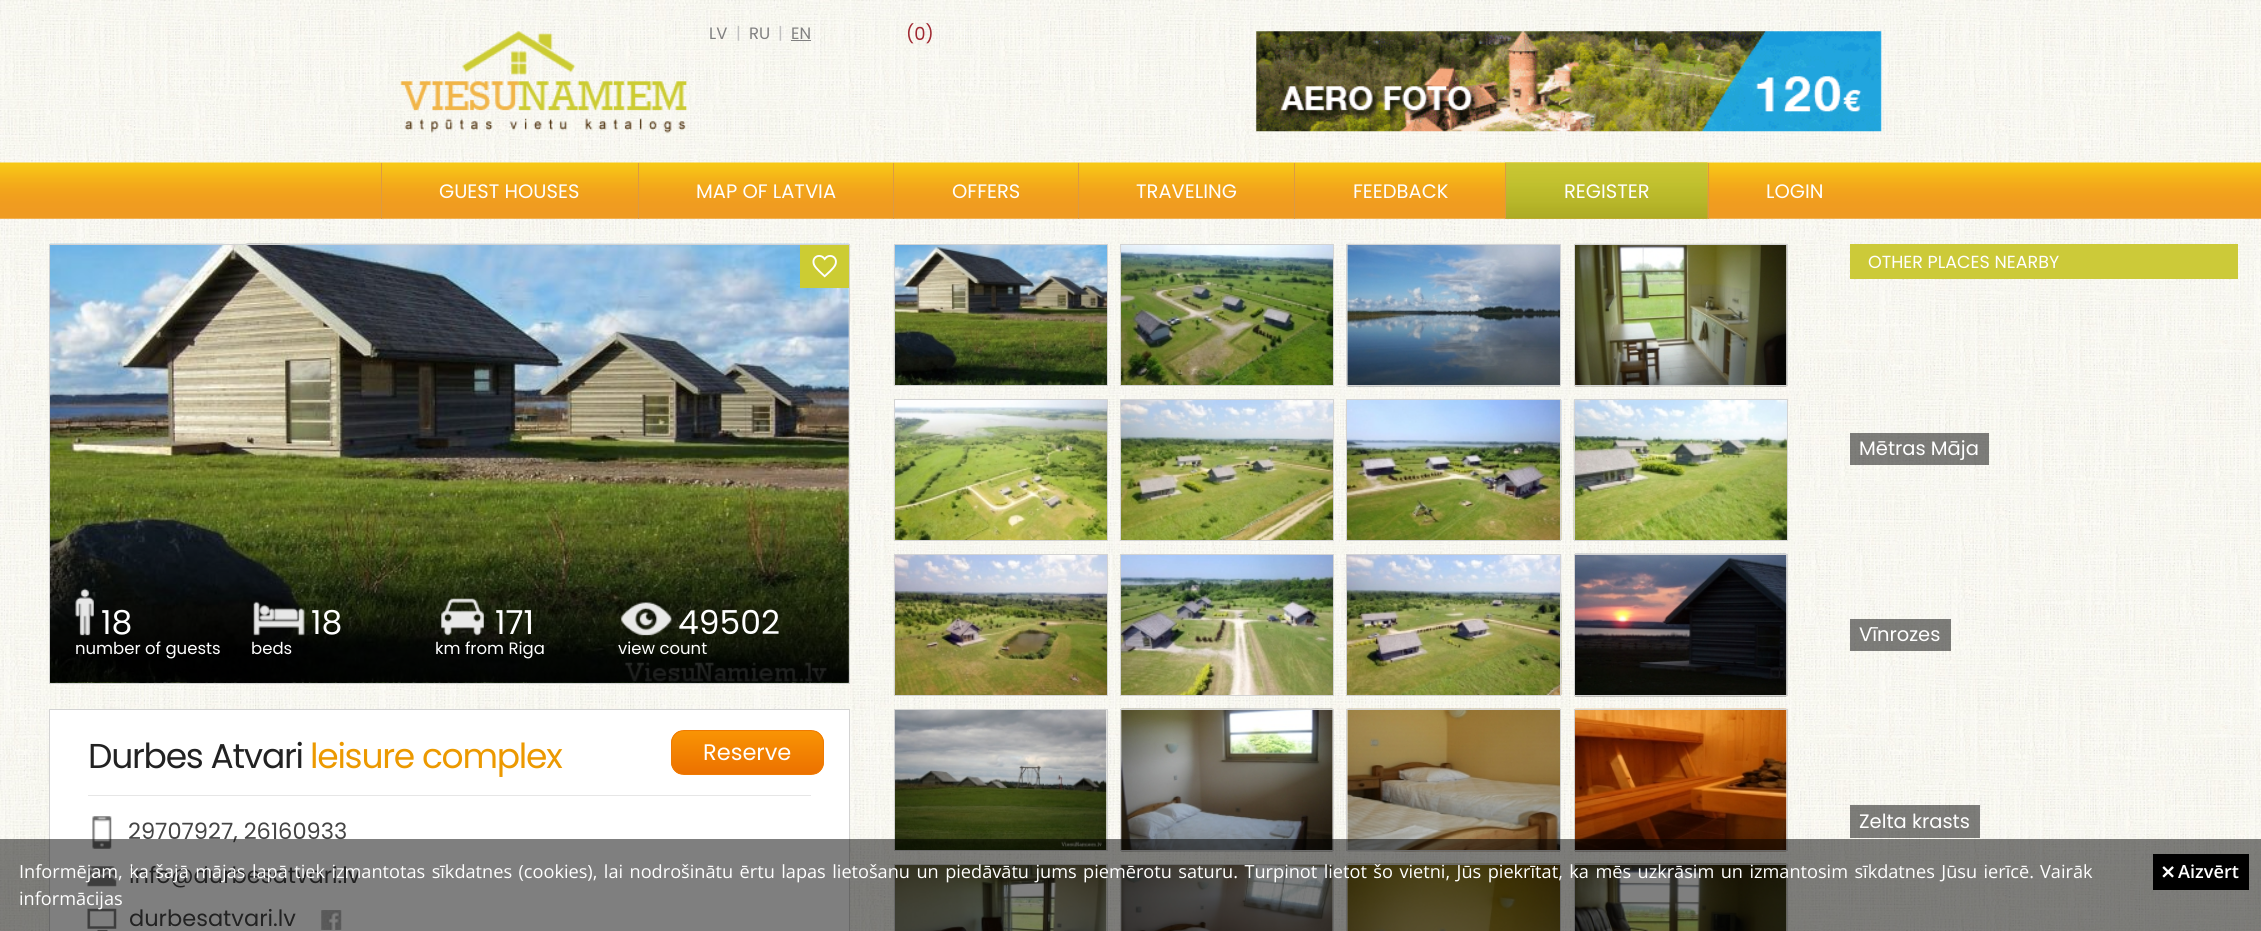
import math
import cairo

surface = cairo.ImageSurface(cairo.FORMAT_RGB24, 2261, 931)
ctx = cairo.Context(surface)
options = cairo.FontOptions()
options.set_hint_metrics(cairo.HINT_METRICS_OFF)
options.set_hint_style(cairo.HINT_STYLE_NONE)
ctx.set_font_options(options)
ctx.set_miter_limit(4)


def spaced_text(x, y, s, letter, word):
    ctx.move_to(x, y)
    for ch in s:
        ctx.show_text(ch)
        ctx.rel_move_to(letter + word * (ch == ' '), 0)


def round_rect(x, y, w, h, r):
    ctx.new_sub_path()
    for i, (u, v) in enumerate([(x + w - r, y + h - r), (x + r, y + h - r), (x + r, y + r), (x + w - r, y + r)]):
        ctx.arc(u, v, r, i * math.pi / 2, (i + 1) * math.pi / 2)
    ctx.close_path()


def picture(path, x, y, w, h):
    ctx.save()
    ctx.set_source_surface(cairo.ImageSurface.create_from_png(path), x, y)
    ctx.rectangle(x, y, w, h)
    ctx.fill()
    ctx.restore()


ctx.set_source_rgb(1, 1, 1)
ctx.paint()
picture("img1.png", 0, 0, 2261, 931)
picture("img2.png", 400, 31, 287, 102)
ctx.select_font_face("Poppins")
ctx.set_font_size(16.5)
ctx.set_source_rgb(0.502, 0.502, 0.502)
ctx.move_to(709, 39)
ctx.show_text("LV")
ctx.set_source_rgb(0.753, 0.753, 0.753)
ctx.move_to(736, 39)
ctx.show_text("|")
ctx.set_source_rgb(0.502, 0.502, 0.502)
ctx.move_to(749, 39)
ctx.show_text("RU")
ctx.set_source_rgb(0.753, 0.753, 0.753)
ctx.move_to(778, 39)
ctx.show_text("|")
ctx.set_source_rgb(0.502, 0.502, 0.502)
ctx.move_to(791, 39)
ctx.show_text("EN")
ctx.rectangle(791, 40, 20, 1)
ctx.fill()
ctx.set_font_size(18)
ctx.set_source_rgb(0.627, 0.161, 0.196)
ctx.move_to(906, 40)
ctx.show_text("(0)")
picture("img3.png", 1256, 31, 626, 101)
picture("img4.png", 0, 162, 2261, 57)
ctx.set_source_rgb(0.863, 0.604, 0.267)
ctx.rectangle(381, 163, 1, 56)
ctx.fill()
ctx.set_font_size(19.5)
ctx.set_source_rgb(1, 1, 1)
ctx.move_to(439, 198)
ctx.show_text("GUEST HOUSES")
ctx.set_source_rgb(0.863, 0.604, 0.267)
ctx.rectangle(638, 163, 1, 56)
ctx.fill()
ctx.set_source_rgb(1, 1, 1)
ctx.move_to(696, 198)
ctx.show_text("MAP OF LATVIA")
ctx.set_source_rgb(0.863, 0.604, 0.267)
ctx.rectangle(893, 163, 1, 56)
ctx.fill()
ctx.set_source_rgb(1, 1, 1)
ctx.move_to(952, 198)
ctx.show_text("OFFERS")
ctx.set_source_rgb(0.863, 0.604, 0.267)
ctx.rectangle(1078, 163, 1, 56)
ctx.fill()
ctx.set_source_rgb(1, 1, 1)
ctx.move_to(1136, 198)
ctx.show_text("TRAVELING")
ctx.set_source_rgb(0.863, 0.604, 0.267)
ctx.rectangle(1294, 163, 1, 56)
ctx.fill()
ctx.set_source_rgb(1, 1, 1)
ctx.move_to(1353, 198)
ctx.show_text("FEEDBACK")
picture("img5.png", 1505, 162, 203, 57)
ctx.set_source_rgb(0.863, 0.604, 0.267)
ctx.rectangle(1505, 163, 1, 56)
ctx.fill()
ctx.set_source_rgb(1, 1, 1)
ctx.move_to(1564, 198)
ctx.show_text("REGISTER")
ctx.set_source_rgb(0.863, 0.604, 0.267)
ctx.rectangle(1708, 163, 1, 56)
ctx.fill()
ctx.set_source_rgb(1, 1, 1)
ctx.move_to(1766, 198)
ctx.show_text("LOGIN")
picture("img6.png", 50, 243, 799, 440)
ctx.rectangle(49.5, 244.5, 800, 439)
ctx.set_source_rgb(0.827, 0.827, 0.827)
ctx.set_line_width(1)
ctx.stroke()
ctx.set_source_rgb(0.8, 0.8, 0.2)
ctx.rectangle(800, 245, 49, 43)
ctx.fill()
picture("img7.png", 812, 255, 25, 23)
picture("img8.png", 50, 493, 799, 190)
picture("img9.png", 75, 588, 19, 48)
ctx.set_font_size(33)
ctx.set_source_rgb(1, 1, 1)
ctx.move_to(101, 634)
ctx.show_text("18")
ctx.set_font_size(16.5)
ctx.move_to(75, 654)
ctx.show_text("number of guests")
picture("img10.png", 253, 601, 52, 35)
ctx.set_font_size(33)
ctx.move_to(311, 634)
ctx.show_text("18")
ctx.set_font_size(16.5)
ctx.move_to(251, 654)
ctx.show_text("beds")
picture("img11.png", 441, 598, 43, 38)
ctx.set_font_size(33)
ctx.move_to(495, 634)
ctx.show_text("171")
ctx.set_font_size(16.5)
ctx.move_to(435, 654)
ctx.show_text("km from Riga")
picture("img12.png", 621, 602, 51, 34)
ctx.set_font_size(33)
ctx.move_to(678, 634)
ctx.show_text("49502")
ctx.set_font_size(16.5)
ctx.move_to(618, 654)
ctx.show_text("view count")
ctx.rectangle(49.5, 709.5, 800, 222)
ctx.fill_preserve()
ctx.set_source_rgb(0.827, 0.827, 0.827)
ctx.stroke()
ctx.set_font_size(34.5)
ctx.set_source_rgb(0.133, 0.133, 0.133)
spaced_text(88, 768, "Durbes Atvari", -1.25, 0)
ctx.set_source_rgb(0.925, 0.6, 0)
spaced_text(310, 768, "leisure complex", -1.25, 0)
ctx.save()
round_rect(671, 730, 153, 45, 13)
ctx.clip()
gradient = cairo.LinearGradient(748, 774, 748, 731)
gradient.add_color_stop_rgba(0, 0.925, 0.443, 0, 1)
gradient.add_color_stop_rgba(1, 0.976, 0.58, 0.016, 1)
ctx.set_source(gradient)
ctx.rectangle(671, 731, 153, 43)
ctx.fill()
ctx.restore()
round_rect(671.5, 730.5, 152, 44, 12.5)
ctx.set_source_rgb(0.937, 0.478, 0.004)
ctx.stroke()
ctx.set_font_size(22.5)
ctx.set_source_rgb(1, 1, 1)
ctx.move_to(703, 760)
ctx.show_text("Reserve")
ctx.set_source_rgb(0.902, 0.902, 0.902)
ctx.rectangle(88, 795, 723, 1)
ctx.fill()
picture("img13.png", 92, 816, 20, 33)
ctx.set_source_rgb(0.267, 0.267, 0.267)
ctx.move_to(128, 839)
ctx.show_text("29707927, 26160933")
picture("img14.png", 87, 866, 30, 21)
ctx.move_to(129, 883)
ctx.show_text("info@durbesatvari.lv")
picture("img15.png", 87, 908, 30, 23)
ctx.move_to(129, 926)
ctx.show_text("durbesatvari.lv")
picture("img16.png", 321, 910, 21, 20)
picture("img17.png", 893, 245, 214, 140)
ctx.rectangle(894.5, 244.5, 213, 141)
ctx.set_source_rgb(0.827, 0.827, 0.827)
ctx.stroke()
picture("img18.png", 1121, 245, 212, 140)
ctx.rectangle(1120.5, 244.5, 213, 141)
ctx.stroke()
picture("img19.png", 1347, 243, 213, 144)
ctx.rectangle(1346.5, 244.5, 214, 141)
ctx.stroke()
picture("img20.png", 1575, 243, 212, 144)
ctx.rectangle(1574.5, 244.5, 213, 141)
ctx.stroke()
picture("img21.png", 893, 400, 214, 140)
ctx.rectangle(894.5, 399.5, 213, 141)
ctx.stroke()
picture("img22.png", 1121, 400, 212, 140)
ctx.rectangle(1120.5, 399.5, 213, 141)
ctx.stroke()
picture("img23.png", 1347, 400, 215, 140)
ctx.rectangle(1346.5, 399.5, 214, 141)
ctx.stroke()
picture("img24.png", 1573, 400, 214, 140)
ctx.rectangle(1574.5, 399.5, 213, 141)
ctx.stroke()
picture("img25.png", 893, 555, 214, 140)
ctx.rectangle(894.5, 554.5, 213, 141)
ctx.stroke()
picture("img26.png", 1121, 555, 212, 140)
ctx.rectangle(1120.5, 554.5, 213, 141)
ctx.stroke()
picture("img27.png", 1347, 555, 215, 140)
ctx.rectangle(1346.5, 554.5, 214, 141)
ctx.stroke()
picture("img28.png", 1575, 553, 212, 144)
ctx.rectangle(1574.5, 554.5, 213, 141)
ctx.stroke()
picture("img29.png", 895, 710, 212, 140)
ctx.rectangle(894.5, 709.5, 213, 141)
ctx.stroke()
picture("img30.png", 1121, 708, 212, 144)
ctx.rectangle(1120.5, 709.5, 213, 141)
ctx.stroke()
picture("img31.png", 1347, 708, 213, 144)
ctx.rectangle(1346.5, 709.5, 214, 141)
ctx.stroke()
picture("img32.png", 1575, 708, 212, 144)
ctx.rectangle(1574.5, 709.5, 213, 141)
ctx.stroke()
picture("img33.png", 895, 865, 212, 66)
ctx.rectangle(894.5, 864.5, 213, 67)
ctx.stroke()
picture("img34.png", 1121, 865, 212, 66)
ctx.rectangle(1120.5, 864.5, 213, 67)
ctx.stroke()
picture("img35.png", 1347, 863, 213, 68)
ctx.rectangle(1346.5, 864.5, 214, 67)
ctx.stroke()
picture("img36.png", 1575, 863, 212, 68)
ctx.rectangle(1574.5, 864.5, 213, 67)
ctx.stroke()
ctx.set_source_rgb(0.8, 0.792, 0.224)
ctx.rectangle(1850, 244, 388, 35)
ctx.fill()
ctx.set_font_size(17.5)
ctx.set_source_rgb(1, 1, 1)
ctx.move_to(1868, 268)
ctx.show_text("OTHER PLACES NEARBY")
ctx.set_source_rgba(0, 0, 0, 0.5)
ctx.rectangle(1850, 433, 139, 32)
ctx.fill()
ctx.set_font_size(19.5)
ctx.set_source_rgb(1, 1, 1)
ctx.move_to(1859, 455)
ctx.show_text("Mētras Māja")
ctx.set_source_rgba(0, 0, 0, 0.5)
ctx.rectangle(1850, 619, 101, 32)
ctx.fill()
ctx.set_source_rgb(1, 1, 1)
ctx.move_to(1859, 641)
ctx.show_text("Vīnrozes")
ctx.set_source_rgba(0, 0, 0, 0.5)
ctx.rectangle(1850, 805, 130, 33)
ctx.fill()
ctx.set_source_rgb(1, 1, 1)
ctx.move_to(1859, 828)
ctx.show_text("Zelta krasts")
ctx.set_source_rgba(0, 0, 0, 0.5)
ctx.rectangle(0, 839, 2261, 92)
ctx.fill()
ctx.select_font_face("Open Sans")
ctx.set_font_size(18.15)
ctx.set_source_rgb(1, 1, 1)
spaced_text(19, 878, "Informējam, ka šajā mājas lapā tiek izmantotas sīkdatnes (cookies), lai nodrošinātu ērtu lapas lietošanu un piedāvātu jums piemērotu saturu. Turpinot lietot šo vietni, Jūs piekrītat, ka mēs uzkrāsim un izmantosim sīkdatnes Jūsu ierīcē.", 0, 1.75)
ctx.move_to(2040, 878)
ctx.show_text("Vairāk")
ctx.move_to(19, 905)
ctx.show_text("informācijas")
ctx.set_source_rgb(0, 0, 0)
ctx.rectangle(2153, 854, 96, 36)
ctx.fill()
picture("img37.png", 2162, 866, 12, 12)
ctx.select_font_face("Open Sans SemiBold")
ctx.set_source_rgb(1, 1, 1)
ctx.move_to(2178, 878)
ctx.show_text("Aizvērt")
surface.write_to_png("page.png")
